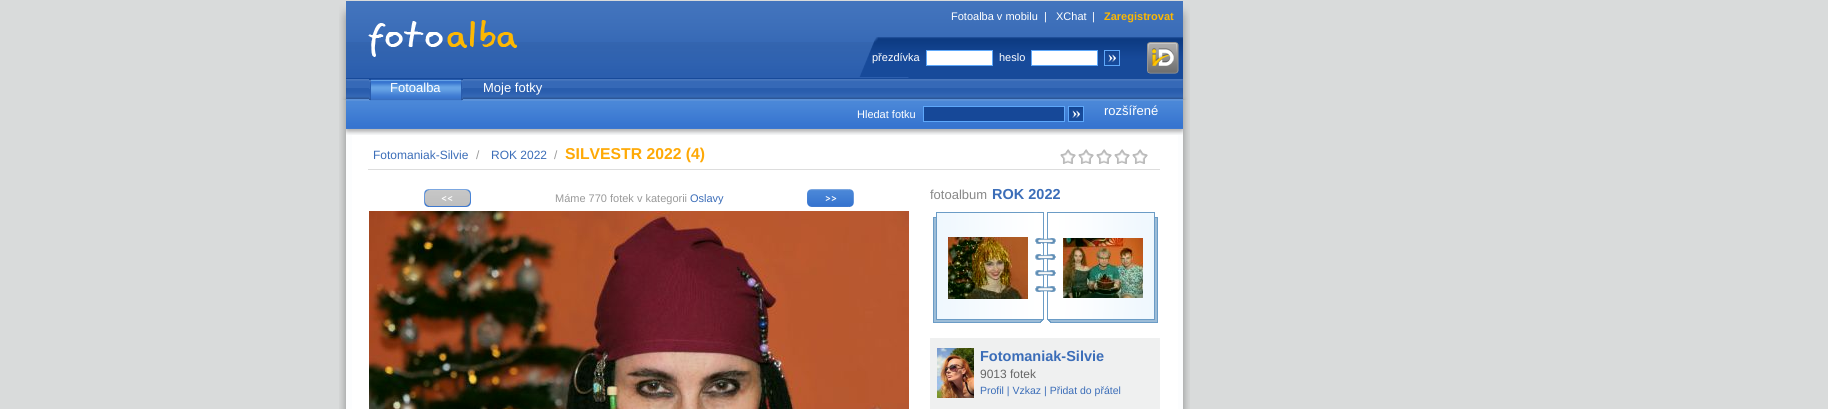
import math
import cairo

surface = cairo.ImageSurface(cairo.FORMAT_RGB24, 1828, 409)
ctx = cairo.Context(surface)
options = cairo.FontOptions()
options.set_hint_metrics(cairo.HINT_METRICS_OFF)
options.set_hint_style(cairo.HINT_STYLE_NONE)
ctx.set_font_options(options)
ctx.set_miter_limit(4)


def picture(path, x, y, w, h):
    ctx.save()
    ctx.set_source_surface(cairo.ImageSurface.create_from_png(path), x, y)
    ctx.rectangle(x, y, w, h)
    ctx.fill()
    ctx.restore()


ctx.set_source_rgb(0.851, 0.859, 0.859)
ctx.paint()
picture("img1.png", 339, 1, 851, 76)
ctx.select_font_face("Liberation Sans")
ctx.set_font_size(11)
ctx.set_source_rgb(1, 1, 1)
ctx.move_to(951, 20)
ctx.show_text("Fotoalba v mobilu")
ctx.move_to(1044, 20)
ctx.show_text("|")
ctx.move_to(1056, 20)
ctx.show_text("XChat")
ctx.move_to(1092, 20)
ctx.show_text("|")
ctx.select_font_face("Liberation Sans", cairo.FONT_SLANT_NORMAL, cairo.FONT_WEIGHT_BOLD)
ctx.set_source_rgb(0.992, 0.722, 0.004)
ctx.move_to(1104, 20)
ctx.show_text("Zaregistrovat")
ctx.select_font_face("Liberation Sans")
ctx.set_source_rgb(1, 1, 1)
ctx.move_to(872, 61)
ctx.show_text("přezdívka")
ctx.rectangle(926.5, 50.5, 66, 15)
ctx.fill_preserve()
ctx.set_source_rgb(0.369, 0.659, 0.98)
ctx.set_line_width(1)
ctx.stroke()
ctx.set_source_rgb(1, 1, 1)
ctx.move_to(999, 61)
ctx.show_text("heslo")
ctx.rectangle(1031.5, 50.5, 66, 15)
ctx.fill_preserve()
ctx.set_source_rgb(0.369, 0.659, 0.98)
ctx.stroke()
picture("img2.png", 1104, 50, 16, 16)
picture("img3.png", 1147, 42, 32, 32)
picture("img4.png", 339, 77, 851, 23)
picture("img6.png", 339, 100, 851, 35)
picture("img5.png", 369, 79, 94, 22)
ctx.set_font_size(13)
ctx.set_source_rgb(1, 1, 1)
ctx.move_to(390, 92)
ctx.show_text("Fotoalba")
ctx.move_to(483, 92)
ctx.show_text("Moje fotky")
ctx.set_font_size(11)
ctx.move_to(857, 118)
ctx.show_text("Hledat fotku")
ctx.set_source_rgb(0.086, 0.282, 0.596)
ctx.rectangle(923.5, 106.5, 141, 15)
ctx.fill_preserve()
ctx.set_source_rgb(0.369, 0.659, 0.98)
ctx.stroke()
picture("img2.png", 1068, 106, 16, 16)
ctx.set_font_size(13)
ctx.set_source_rgb(1, 1, 1)
ctx.move_to(1104, 115)
ctx.show_text("rozšířené")
picture("img7.png", 339, 135, 851, 274)
ctx.set_font_size(12)
ctx.set_source_rgb(0.231, 0.427, 0.722)
ctx.move_to(373, 159)
ctx.show_text("Fotomaniak-Silvie")
ctx.set_source_rgb(0.6, 0.6, 0.6)
ctx.move_to(476, 159)
ctx.show_text("/")
ctx.set_source_rgb(0.231, 0.427, 0.722)
ctx.move_to(491, 159)
ctx.show_text("ROK 2022")
ctx.set_source_rgb(0.6, 0.6, 0.6)
ctx.move_to(554, 159)
ctx.show_text("/")
ctx.select_font_face("Liberation Sans", cairo.FONT_SLANT_NORMAL, cairo.FONT_WEIGHT_BOLD)
ctx.set_font_size(15.75)
ctx.set_source_rgb(0.996, 0.663, 0.024)
ctx.move_to(565, 159)
ctx.show_text("SILVESTR 2022 (4)")
picture("img8.png", 1060, 149, 16, 15)
picture("img8.png", 1078, 149, 16, 15)
picture("img8.png", 1096, 149, 16, 15)
picture("img8.png", 1114, 149, 16, 15)
picture("img8.png", 1132, 149, 16, 15)
ctx.set_source_rgb(0.867, 0.867, 0.867)
ctx.rectangle(368, 169, 792, 1)
ctx.fill()
picture("img9.png", 424, 189, 47, 18)
ctx.select_font_face("Liberation Sans")
ctx.set_font_size(11)
ctx.set_source_rgb(0.6, 0.6, 0.6)
ctx.move_to(555, 202)
ctx.show_text("Máme 770 fotek v kategorii")
ctx.set_source_rgb(0.231, 0.427, 0.722)
ctx.move_to(690, 202)
ctx.show_text("Oslavy")
picture("img10.png", 807, 189, 47, 18)
picture("img11.png", 369, 211, 540, 198)
ctx.set_font_size(13)
ctx.set_source_rgb(0.533, 0.533, 0.533)
ctx.move_to(930, 199)
ctx.show_text("fotoalbum")
ctx.select_font_face("Liberation Sans", cairo.FONT_SLANT_NORMAL, cairo.FONT_WEIGHT_BOLD)
ctx.set_font_size(14.5)
ctx.set_source_rgb(0.231, 0.427, 0.722)
ctx.move_to(992, 199)
ctx.show_text("ROK 2022")
picture("img12.png", 933, 212, 225, 111)
picture("img13.png", 948, 237, 80, 62)
picture("img14.png", 1063, 238, 80, 60)
ctx.set_source_rgb(0.937, 0.941, 0.941)
ctx.rectangle(930, 338, 230, 71)
ctx.fill()
picture("img15.png", 937, 348, 37, 50)
ctx.set_source_rgb(0.231, 0.427, 0.722)
ctx.move_to(980, 361)
ctx.show_text("Fotomaniak-Silvie")
ctx.select_font_face("Liberation Sans")
ctx.set_font_size(12)
ctx.set_source_rgb(0.4, 0.4, 0.4)
ctx.move_to(980, 378)
ctx.show_text("9013 fotek")
ctx.set_font_size(10.5)
ctx.set_source_rgb(0.231, 0.427, 0.722)
ctx.move_to(980, 394)
ctx.show_text("Profil | Vzkaz | Přidat do přátel")
surface.write_to_png("page.png")
